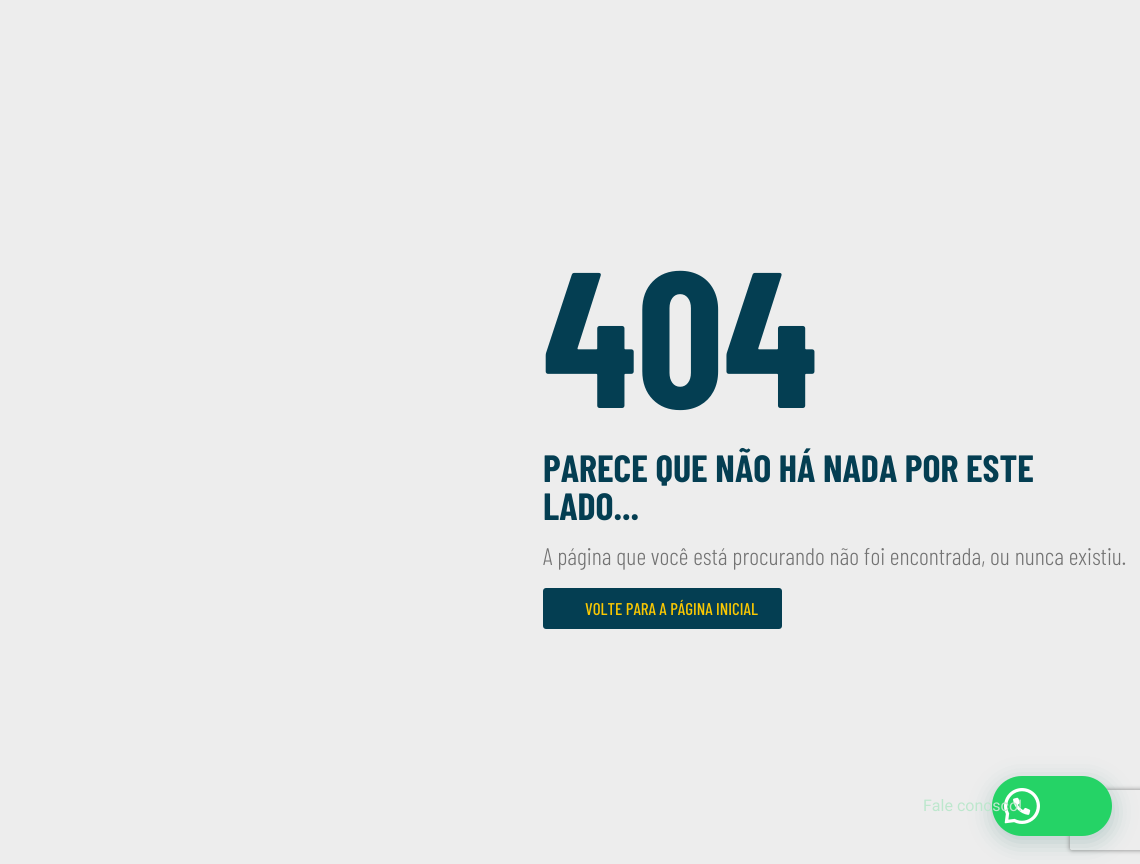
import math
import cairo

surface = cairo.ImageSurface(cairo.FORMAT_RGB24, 1140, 864)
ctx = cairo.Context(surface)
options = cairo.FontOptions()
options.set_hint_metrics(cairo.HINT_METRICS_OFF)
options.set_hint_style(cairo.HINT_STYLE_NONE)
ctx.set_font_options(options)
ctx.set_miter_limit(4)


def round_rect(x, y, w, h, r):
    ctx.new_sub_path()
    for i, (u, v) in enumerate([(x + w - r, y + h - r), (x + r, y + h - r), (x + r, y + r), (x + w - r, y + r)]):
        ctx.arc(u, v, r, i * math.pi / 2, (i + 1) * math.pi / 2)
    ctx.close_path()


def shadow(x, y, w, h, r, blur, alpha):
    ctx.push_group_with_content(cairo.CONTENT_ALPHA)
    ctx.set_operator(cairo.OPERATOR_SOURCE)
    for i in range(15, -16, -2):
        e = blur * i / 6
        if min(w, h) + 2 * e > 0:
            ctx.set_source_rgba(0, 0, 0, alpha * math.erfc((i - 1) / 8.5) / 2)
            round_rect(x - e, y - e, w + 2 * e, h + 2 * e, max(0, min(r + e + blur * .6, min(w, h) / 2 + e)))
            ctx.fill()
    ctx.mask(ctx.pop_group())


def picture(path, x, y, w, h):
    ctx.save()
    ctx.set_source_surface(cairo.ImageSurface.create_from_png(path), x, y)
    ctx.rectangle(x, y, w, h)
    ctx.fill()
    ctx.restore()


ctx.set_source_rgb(0.929, 0.929, 0.929)
ctx.paint()
ctx.select_font_face("Barlow Condensed", cairo.FONT_SLANT_NORMAL, cairo.FONT_WEIGHT_BOLD)
ctx.set_font_size(193)
ctx.set_source_rgb(0.016, 0.243, 0.322)
ctx.move_to(543, 408)
ctx.show_text("404")
ctx.set_font_size(38)
ctx.move_to(543, 482)
ctx.show_text("PARECE QUE NÃO HÁ NADA POR ESTE")
ctx.move_to(543, 520)
ctx.show_text("LADO...")
ctx.select_font_face("Barlow Condensed Light")
ctx.set_font_size(24)
ctx.set_source_rgb(0.451, 0.451, 0.451)
ctx.move_to(543, 565)
ctx.show_text("A página que você está procurando não foi encontrada, ou nunca existiu.")
ctx.set_source_rgb(0.016, 0.243, 0.322)
round_rect(543, 588, 239, 41, 3)
ctx.fill()
ctx.select_font_face("Barlow Condensed Medium")
ctx.set_font_size(17)
ctx.set_source_rgb(0.984, 0.784, 0.004)
ctx.move_to(585, 615)
ctx.show_text("VOLTE PARA A PÁGINA INICIAL")
ctx.set_source_rgb(0.027, 0.369, 0.329)
shadow(993, 782, 120, 60, 30, 12, 0.24)
ctx.save()
ctx.set_fill_rule(cairo.FILL_RULE_EVEN_ODD)
ctx.new_path()
ctx.move_to(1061, 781)
ctx.line_to(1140, 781)
ctx.line_to(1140, 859)
ctx.line_to(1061, 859)
ctx.close_path()
ctx.move_to(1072, 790)
ctx.line_to(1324, 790)
ctx.curve_to(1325, 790, 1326, 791, 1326, 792)
ctx.line_to(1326, 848)
ctx.curve_to(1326, 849, 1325, 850, 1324, 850)
ctx.line_to(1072, 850)
ctx.curve_to(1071, 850, 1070, 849, 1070, 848)
ctx.line_to(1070, 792)
ctx.curve_to(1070, 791, 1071, 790, 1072, 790)
ctx.close_path()
ctx.clip()
ctx.set_source_rgb(0.502, 0.502, 0.502)
shadow(1070, 790, 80, 60, 2, 2.5, 1)
ctx.restore()
ctx.set_source_rgb(0.145, 0.827, 0.4)
round_rect(992, 776, 120, 60, 30)
ctx.fill()
picture("img1.png", 1004, 788, 36, 36)
ctx.select_font_face("Roboto")
ctx.set_font_size(16)
ctx.set_source_rgb(0.741, 0.906, 0.804)
ctx.move_to(923, 811)
ctx.show_text("Fale conosco!")
surface.write_to_png("page.png")
